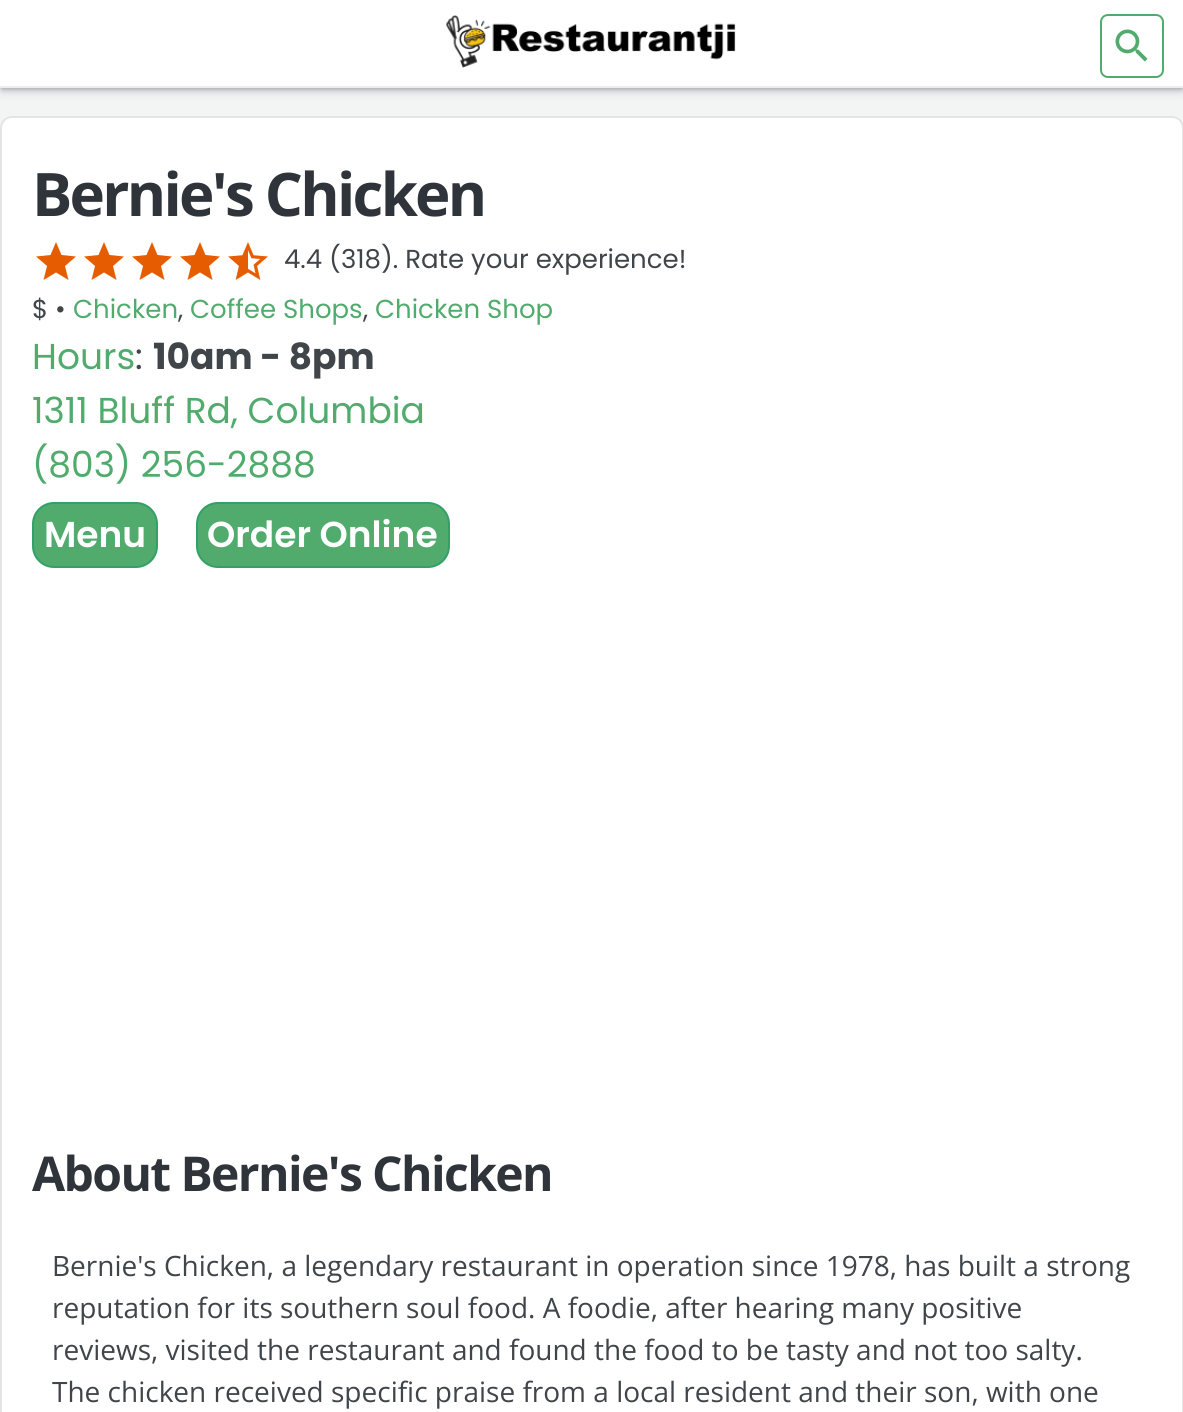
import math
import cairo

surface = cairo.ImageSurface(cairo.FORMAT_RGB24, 1183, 1412)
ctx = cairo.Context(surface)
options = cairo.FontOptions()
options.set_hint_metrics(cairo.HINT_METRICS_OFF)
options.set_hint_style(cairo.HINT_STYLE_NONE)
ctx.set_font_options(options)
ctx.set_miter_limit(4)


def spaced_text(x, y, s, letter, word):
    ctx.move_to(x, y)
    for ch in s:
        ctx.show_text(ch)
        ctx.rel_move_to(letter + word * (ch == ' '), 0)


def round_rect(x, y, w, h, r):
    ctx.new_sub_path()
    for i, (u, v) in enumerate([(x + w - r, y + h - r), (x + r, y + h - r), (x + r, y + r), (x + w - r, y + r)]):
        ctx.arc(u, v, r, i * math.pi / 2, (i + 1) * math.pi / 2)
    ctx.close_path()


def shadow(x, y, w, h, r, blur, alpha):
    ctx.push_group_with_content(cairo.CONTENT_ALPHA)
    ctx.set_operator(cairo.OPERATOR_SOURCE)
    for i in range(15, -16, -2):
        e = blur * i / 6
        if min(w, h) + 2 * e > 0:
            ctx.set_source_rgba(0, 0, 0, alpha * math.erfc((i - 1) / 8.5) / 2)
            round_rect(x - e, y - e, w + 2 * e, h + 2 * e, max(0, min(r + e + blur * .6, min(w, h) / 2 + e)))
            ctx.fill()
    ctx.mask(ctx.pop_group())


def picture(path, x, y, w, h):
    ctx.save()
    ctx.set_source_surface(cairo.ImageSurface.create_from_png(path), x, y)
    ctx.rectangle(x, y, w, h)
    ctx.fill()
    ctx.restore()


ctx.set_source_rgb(0.953, 0.957, 0.957)
ctx.paint()
ctx.set_source_rgb(0, 0, 0)
shadow(2, 4, 1180, 84, 0, 3, 0.3)
ctx.set_source_rgb(0.196, 0.196, 0.365)
shadow(2, 6, 1180, 84, 0, 5, 0.25)
ctx.set_source_rgb(1, 1, 1)
ctx.rectangle(0, 0, 1183, 86)
ctx.fill()
ctx.set_source_rgb(0.929, 0.929, 0.929)
ctx.rectangle(0, 86, 1183, 2)
ctx.fill()
picture("img1.png", 446, 15, 290, 53)
round_rect(1101, 15, 62, 62, 7)
ctx.set_source_rgb(0.318, 0.671, 0.427)
ctx.stroke()
picture("img2.png", 1115, 29, 33, 33)
ctx.set_source_rgb(1, 1, 1)
round_rect(1, 117, 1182, 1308, 11)
ctx.fill_preserve()
ctx.set_source_rgb(0.894, 0.894, 0.894)
ctx.stroke()
ctx.select_font_face("Open Sans", cairo.FONT_SLANT_NORMAL, cairo.FONT_WEIGHT_BOLD)
ctx.set_font_size(60)
ctx.set_source_rgb(0.184, 0.204, 0.231)
spaced_text(32, 216, "Bernie's Chicken", -2.75, 0)
ctx.set_source_rgb(0.902, 0.365, 0.004)
ctx.new_path()
ctx.move_to(56, 272.5)
ctx.line_to(68.5, 280)
ctx.line_to(65, 266)
ctx.line_to(76, 256.5)
ctx.line_to(61.5, 255)
ctx.line_to(56, 242)
ctx.line_to(50.5, 255)
ctx.line_to(36, 256.5)
ctx.line_to(47, 266)
ctx.line_to(43.5, 280)
ctx.close_path()
ctx.fill()
ctx.new_path()
ctx.move_to(104, 272.5)
ctx.line_to(116.5, 280)
ctx.line_to(113, 266)
ctx.line_to(124, 256.5)
ctx.line_to(109.5, 255)
ctx.line_to(104, 242)
ctx.line_to(98.5, 255)
ctx.line_to(84, 256.5)
ctx.line_to(95, 266)
ctx.line_to(91.5, 280)
ctx.close_path()
ctx.fill()
ctx.new_path()
ctx.move_to(152, 272.5)
ctx.line_to(164.5, 280)
ctx.line_to(161, 266)
ctx.line_to(172, 256.5)
ctx.line_to(157.5, 255)
ctx.line_to(152, 242)
ctx.line_to(146.5, 255)
ctx.line_to(132, 256.5)
ctx.line_to(143, 266)
ctx.line_to(139.5, 280)
ctx.close_path()
ctx.fill()
ctx.new_path()
ctx.move_to(200, 272.5)
ctx.line_to(212.5, 280)
ctx.line_to(209, 266)
ctx.line_to(220, 256.5)
ctx.line_to(205.5, 255)
ctx.line_to(200, 242)
ctx.line_to(194.5, 255)
ctx.line_to(180, 256.5)
ctx.line_to(191, 266)
ctx.line_to(187.5, 280)
ctx.close_path()
ctx.fill()
picture("img3.png", 228, 242, 40, 38)
ctx.select_font_face("Poppins")
ctx.set_font_size(26)
ctx.set_source_rgb(0.251, 0.271, 0.29)
ctx.move_to(284, 268)
ctx.show_text("4.4 (318). Rate your experience!")
ctx.move_to(32, 318)
ctx.show_text("$ •")
ctx.set_source_rgb(0.318, 0.671, 0.427)
ctx.move_to(73, 318)
ctx.show_text("Chicken")
ctx.set_source_rgb(0.251, 0.271, 0.29)
ctx.move_to(178, 318)
ctx.show_text(",")
ctx.set_source_rgb(0.318, 0.671, 0.427)
ctx.move_to(190, 318)
ctx.show_text("Coffee Shops")
ctx.set_source_rgb(0.251, 0.271, 0.29)
ctx.move_to(363, 318)
ctx.show_text(",")
ctx.set_source_rgb(0.318, 0.671, 0.427)
ctx.move_to(375, 318)
ctx.show_text("Chicken Shop")
ctx.set_font_size(36)
ctx.move_to(32, 369)
ctx.show_text("Hours")
ctx.set_source_rgb(0.251, 0.271, 0.29)
ctx.move_to(135, 369)
ctx.show_text(":")
ctx.select_font_face("Poppins", cairo.FONT_SLANT_NORMAL, cairo.FONT_WEIGHT_BOLD)
ctx.move_to(153, 369)
ctx.show_text("10am - 8pm")
ctx.select_font_face("Poppins")
ctx.set_source_rgb(0.318, 0.671, 0.427)
ctx.move_to(32, 423)
ctx.show_text("1311 Bluff Rd, Columbia")
ctx.move_to(32, 477)
ctx.show_text("(803) 256-2888")
round_rect(33, 503, 124, 64, 21)
ctx.fill_preserve()
ctx.set_source_rgb(0.196, 0.627, 0.404)
ctx.stroke()
ctx.select_font_face("Poppins SemiBold")
ctx.set_source_rgb(1, 1, 1)
ctx.move_to(44, 547)
ctx.show_text("Menu")
ctx.set_source_rgb(0.318, 0.671, 0.427)
round_rect(197, 503, 252, 64, 21)
ctx.fill_preserve()
ctx.set_source_rgb(0.196, 0.627, 0.404)
ctx.stroke()
ctx.set_source_rgb(1, 1, 1)
ctx.move_to(207, 547)
ctx.show_text("Order Online")
ctx.select_font_face("Open Sans", cairo.FONT_SLANT_NORMAL, cairo.FONT_WEIGHT_BOLD)
ctx.set_font_size(48)
ctx.set_source_rgb(0.184, 0.204, 0.231)
spaced_text(32, 1191, "About Bernie's Chicken", -1.6, 0)
ctx.select_font_face("Open Sans")
ctx.set_font_size(28)
ctx.set_source_rgb(0.251, 0.271, 0.29)
ctx.move_to(52, 1276)
ctx.show_text("Bernie's Chicken, a legendary restaurant in operation since 1978, has built a strong")
ctx.move_to(52, 1318)
ctx.show_text("reputation for its southern soul food. A foodie, after hearing many positive")
ctx.move_to(52, 1360)
ctx.show_text("reviews, visited the restaurant and found the food to be tasty and not too salty.")
ctx.move_to(52, 1402)
ctx.show_text("The chicken received specific praise from a local resident and their son, with one")
surface.write_to_png("page.png")
